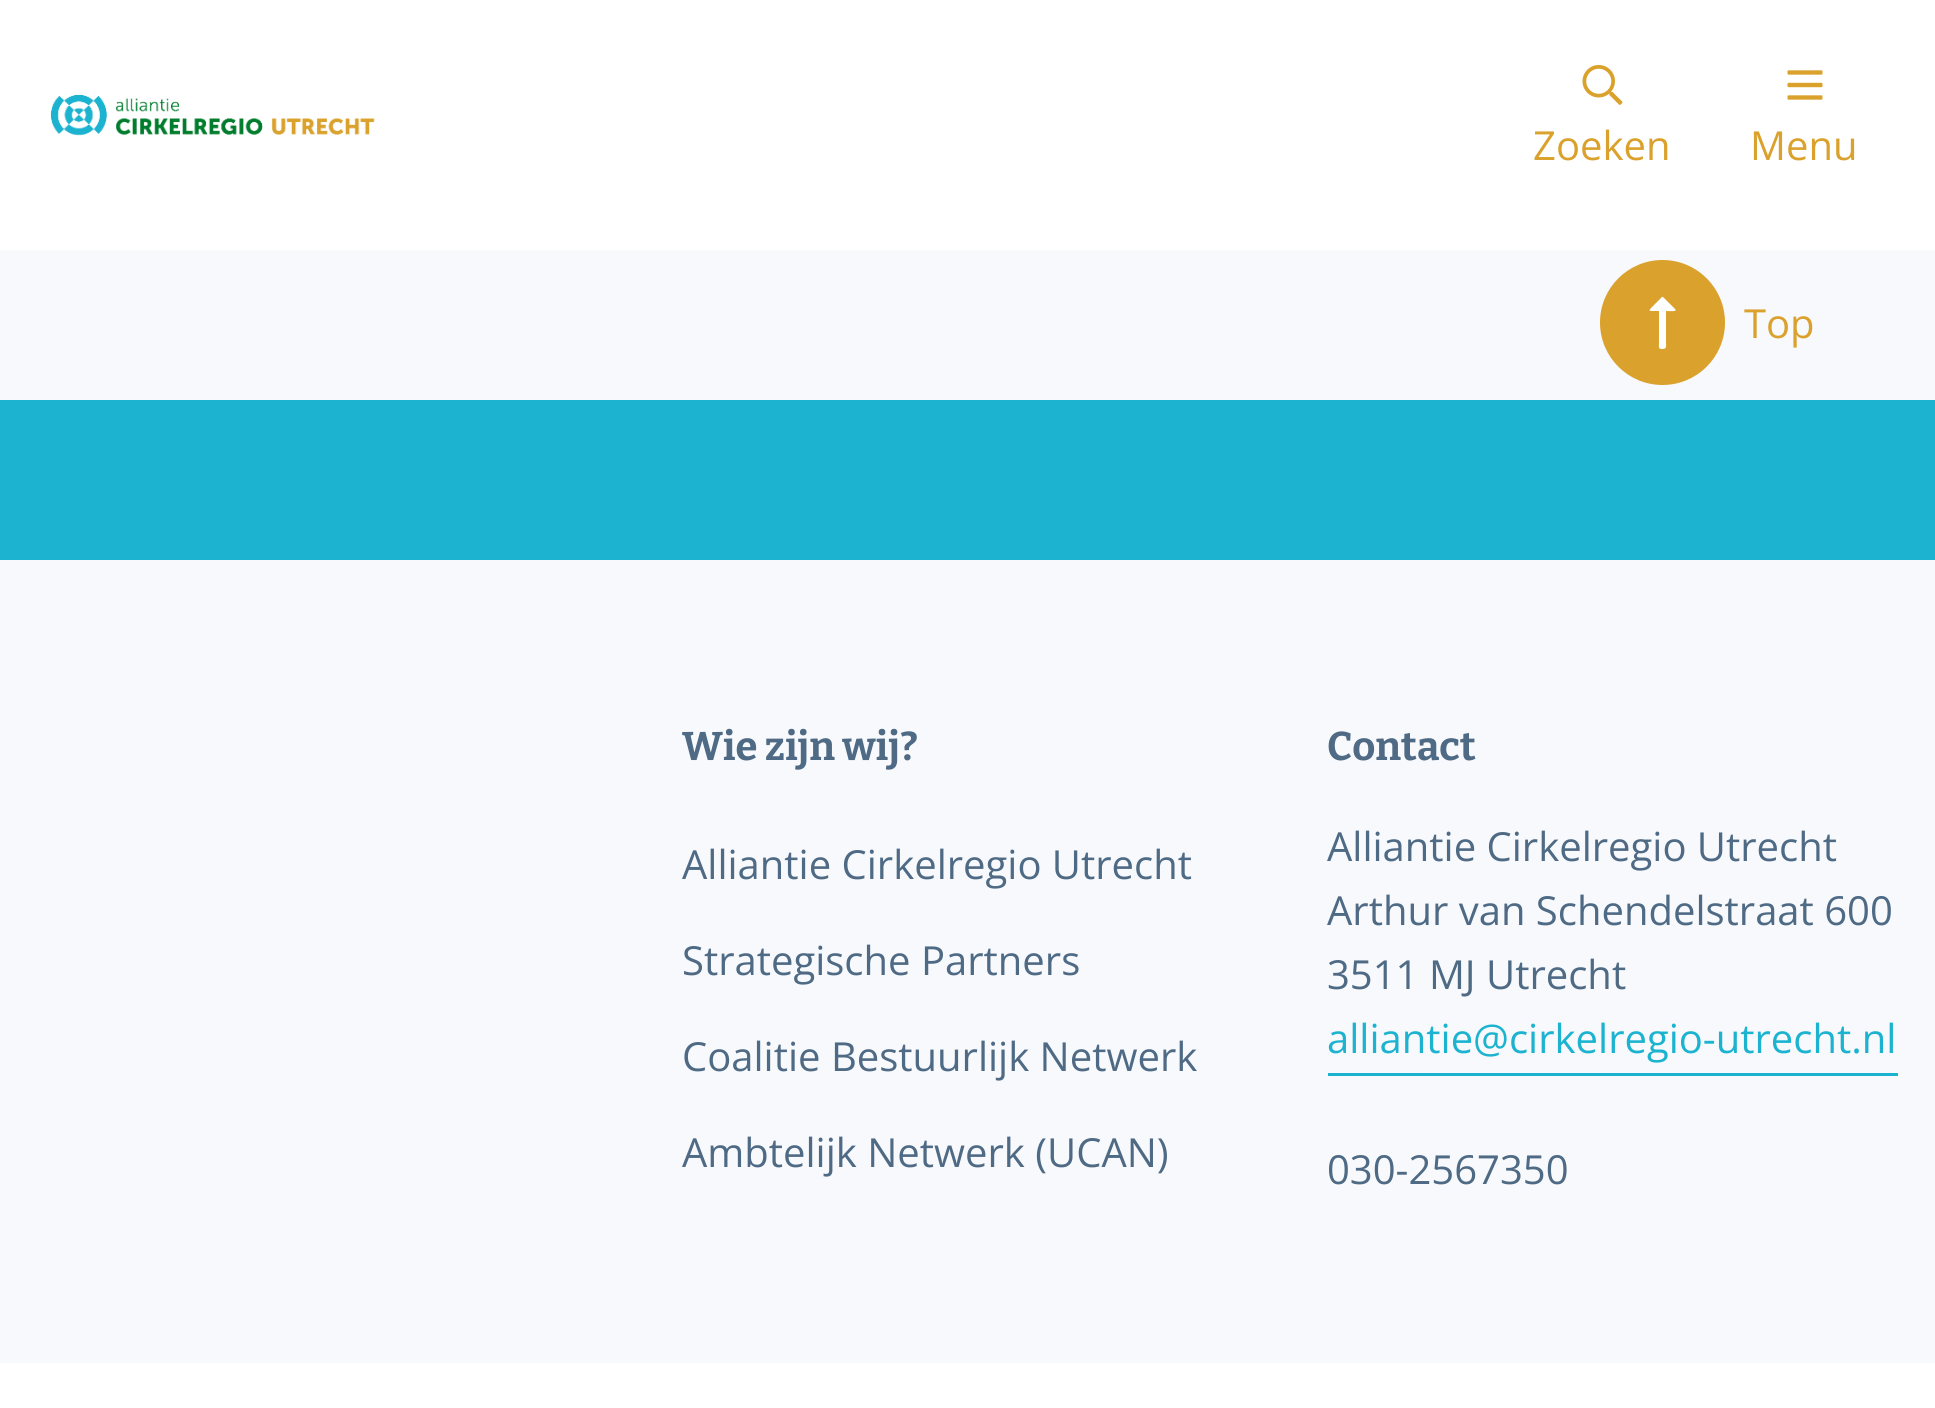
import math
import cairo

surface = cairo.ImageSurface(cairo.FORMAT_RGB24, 1935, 1408)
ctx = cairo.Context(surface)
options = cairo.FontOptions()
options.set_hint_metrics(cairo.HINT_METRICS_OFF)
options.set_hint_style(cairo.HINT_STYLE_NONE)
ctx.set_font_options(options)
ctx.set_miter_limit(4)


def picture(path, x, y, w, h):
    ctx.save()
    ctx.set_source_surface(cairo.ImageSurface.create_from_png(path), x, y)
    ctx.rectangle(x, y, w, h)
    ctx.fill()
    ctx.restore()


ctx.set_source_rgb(0.965, 0.976, 0.988)
ctx.paint()
ctx.set_source_rgb(1, 1, 1)
ctx.rectangle(0, 0, 1935, 250)
ctx.fill()
picture("img1.png", 50, 94, 325, 42)
picture("img2.png", 1582, 65, 41, 40)
ctx.select_font_face("Open Sans")
ctx.set_font_size(40)
ctx.set_source_rgb(0.855, 0.635, 0.173)
ctx.move_to(1533, 160)
ctx.show_text("Zoeken")
picture("img3.png", 1787, 70, 36, 30)
ctx.move_to(1750, 160)
ctx.show_text("Menu")
ctx.new_path()
ctx.arc(1662.5, 322.5, 62.5, 0, 2 * math.pi)
ctx.fill()
ctx.set_source_rgb(1, 1, 1)
ctx.new_path()
ctx.move_to(1675, 309)
ctx.line_to(1665, 299)
ctx.curve_to(1662, 296, 1663, 296, 1660, 299)
ctx.line_to(1656, 303)
ctx.curve_to(1647, 312, 1647, 311, 1659, 311)
ctx.line_to(1659, 341)
ctx.curve_to(1659, 347, 1658, 349, 1662, 349)
ctx.curve_to(1667, 349, 1666, 347, 1666, 341)
ctx.line_to(1666, 311)
ctx.curve_to(1670, 311, 1678, 312, 1675, 309)
ctx.close_path()
ctx.fill()
ctx.set_source_rgb(0.855, 0.635, 0.173)
ctx.move_to(1744, 338)
ctx.show_text("Top")
ctx.set_source_rgb(0.11, 0.702, 0.816)
ctx.rectangle(0, 400, 1935, 160)
ctx.fill()
ctx.select_font_face("Bitter Thin")
ctx.set_source_rgb(0.31, 0.416, 0.518)
ctx.move_to(682, 760)
ctx.show_text("Wie zijn wij?")
ctx.select_font_face("Open Sans")
ctx.move_to(682, 879)
ctx.show_text("Alliantie Cirkelregio Utrecht")
ctx.move_to(682, 975)
ctx.show_text("Strategische Partners")
ctx.move_to(682, 1071)
ctx.show_text("Coalitie Bestuurlijk Netwerk")
ctx.move_to(682, 1167)
ctx.show_text("Ambtelijk Netwerk (UCAN)")
ctx.select_font_face("Bitter Thin")
ctx.move_to(1327, 760)
ctx.show_text("Contact")
ctx.select_font_face("Open Sans")
ctx.move_to(1327, 861)
ctx.show_text("Alliantie Cirkelregio Utrecht")
ctx.move_to(1327, 925)
ctx.show_text("Arthur van Schendelstraat 600")
ctx.move_to(1327, 989)
ctx.show_text("3511 MJ Utrecht")
ctx.set_source_rgb(0.11, 0.702, 0.816)
ctx.rectangle(1328, 1073, 570, 3)
ctx.fill()
ctx.move_to(1327, 1053)
ctx.show_text("alliantie@cirkelregio-utrecht.nl")
ctx.set_source_rgb(0.31, 0.416, 0.518)
ctx.move_to(1327, 1184)
ctx.show_text("030-2567350")
ctx.set_source_rgb(1, 1, 1)
ctx.rectangle(0, 1363, 1935, 45)
ctx.fill()
surface.write_to_png("page.png")
